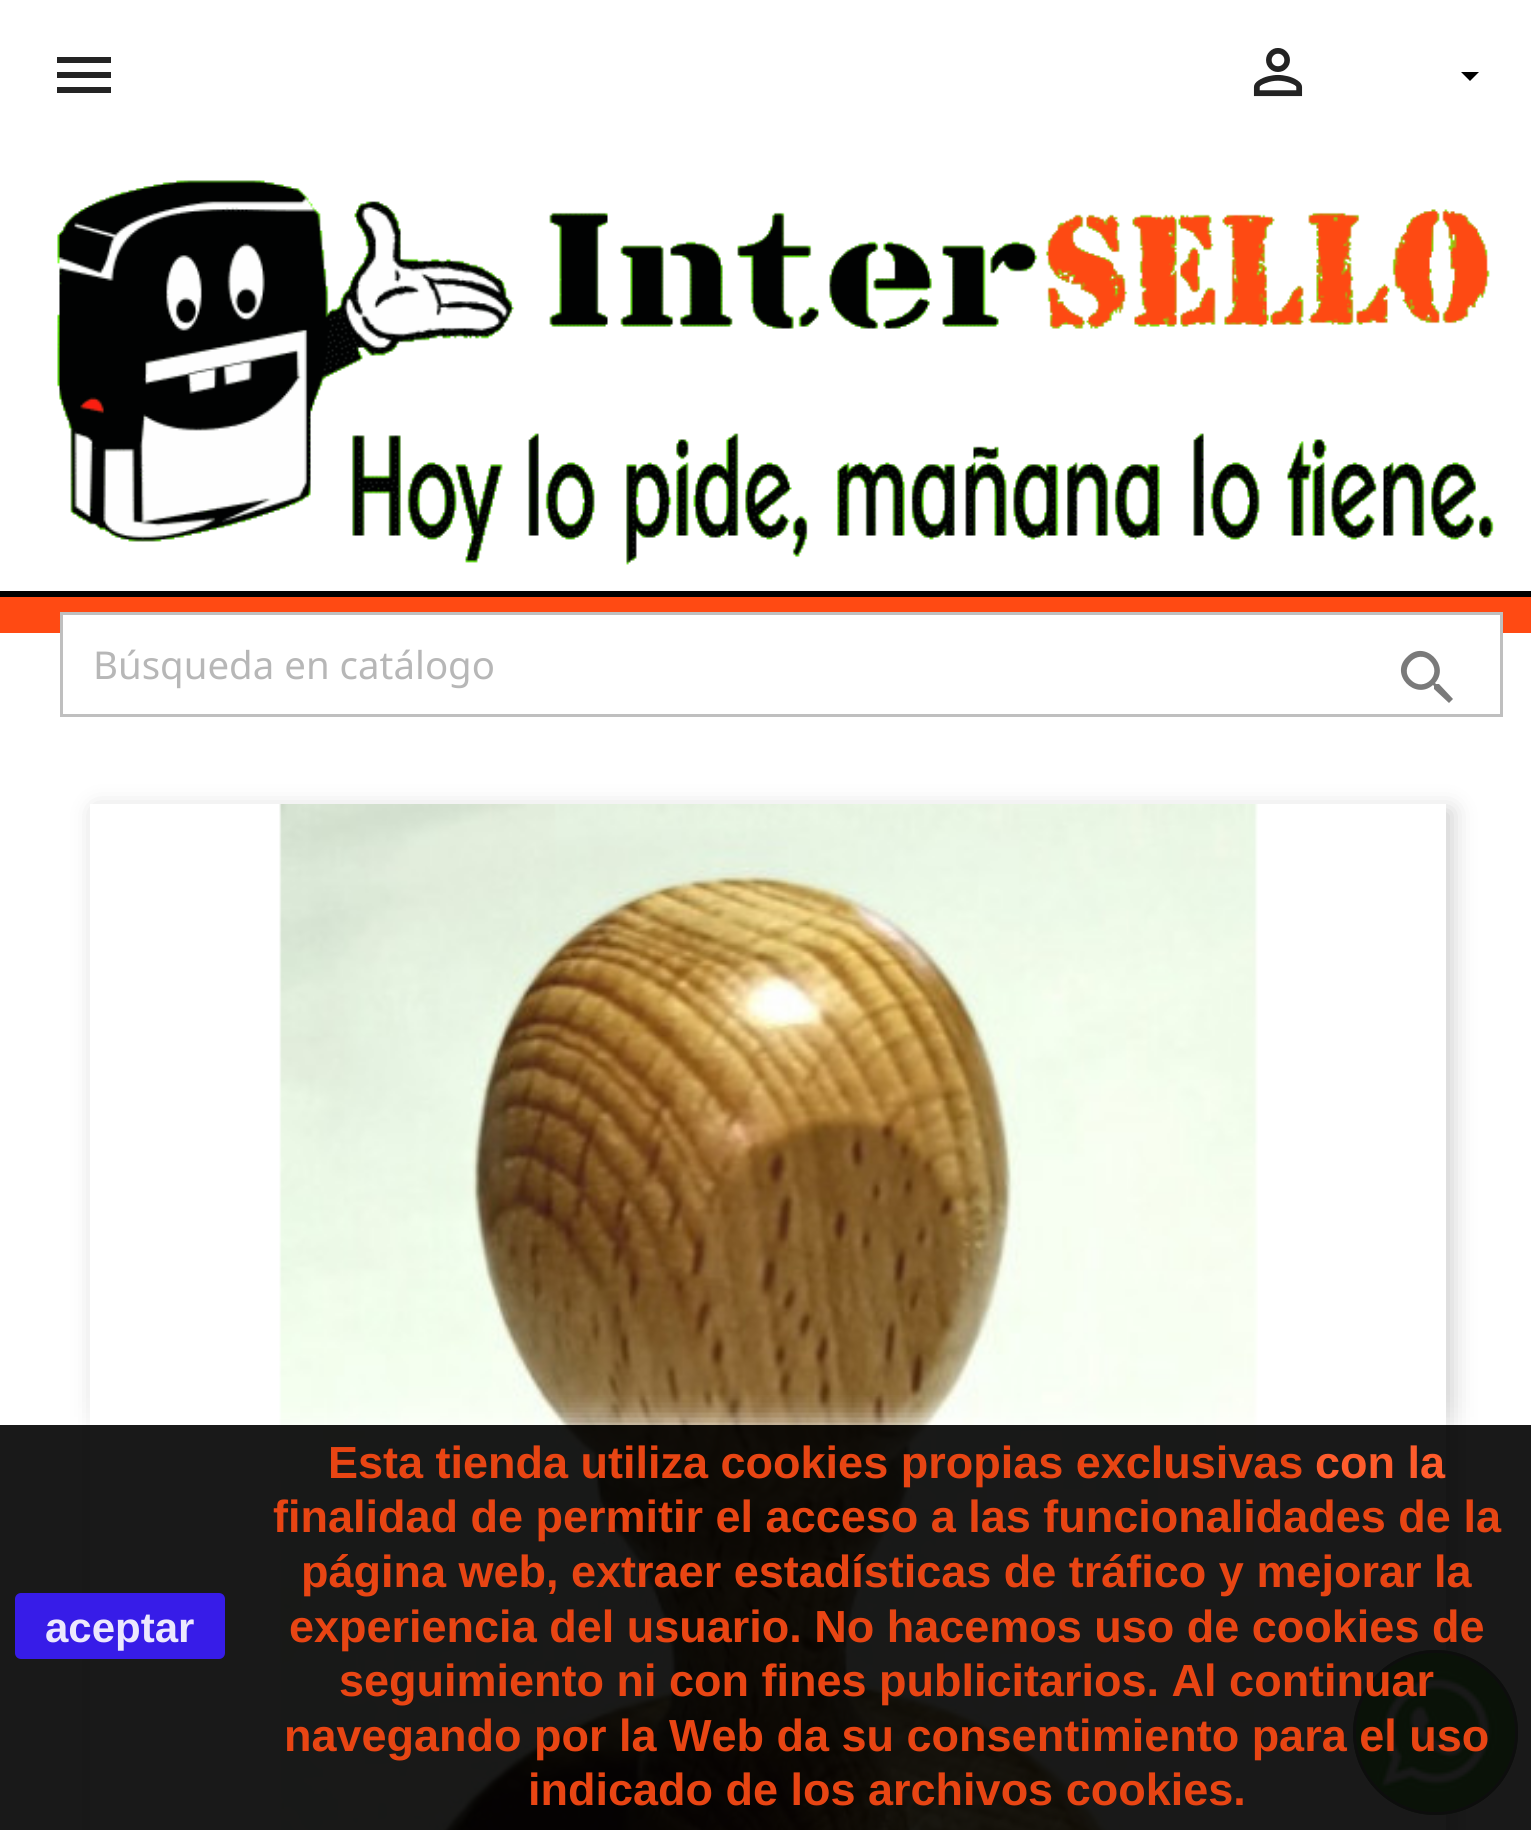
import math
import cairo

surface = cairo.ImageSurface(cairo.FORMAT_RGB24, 1531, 1830)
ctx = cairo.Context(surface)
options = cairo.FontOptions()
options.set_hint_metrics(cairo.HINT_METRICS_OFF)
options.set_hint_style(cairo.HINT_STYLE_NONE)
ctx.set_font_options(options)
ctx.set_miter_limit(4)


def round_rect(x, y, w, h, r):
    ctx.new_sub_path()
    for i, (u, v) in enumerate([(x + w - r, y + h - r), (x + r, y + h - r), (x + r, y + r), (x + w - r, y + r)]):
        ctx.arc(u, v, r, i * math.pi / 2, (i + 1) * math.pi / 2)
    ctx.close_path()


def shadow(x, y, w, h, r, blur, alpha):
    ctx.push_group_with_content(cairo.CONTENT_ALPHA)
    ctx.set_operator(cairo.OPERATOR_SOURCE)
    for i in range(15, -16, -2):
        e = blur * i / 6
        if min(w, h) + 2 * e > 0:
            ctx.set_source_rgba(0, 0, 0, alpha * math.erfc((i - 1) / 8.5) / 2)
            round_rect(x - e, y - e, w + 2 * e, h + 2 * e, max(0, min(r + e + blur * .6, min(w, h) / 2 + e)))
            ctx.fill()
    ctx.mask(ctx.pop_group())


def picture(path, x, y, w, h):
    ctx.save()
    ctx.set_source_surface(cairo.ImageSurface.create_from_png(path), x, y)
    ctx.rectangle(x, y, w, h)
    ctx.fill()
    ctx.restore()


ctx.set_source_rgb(1, 1, 1)
ctx.paint()
ctx.set_source_rgb(0, 0, 0)
ctx.rectangle(0, 591, 1531, 6)
ctx.fill()
ctx.set_source_rgb(0.137, 0.137, 0.137)
ctx.new_path()
ctx.move_to(57, 57)
ctx.line_to(111, 57)
ctx.line_to(111, 63)
ctx.line_to(57, 63)
ctx.close_path()
ctx.move_to(57, 78)
ctx.line_to(57, 72)
ctx.line_to(111, 72)
ctx.line_to(111, 78)
ctx.close_path()
ctx.move_to(57, 93)
ctx.line_to(57, 87)
ctx.line_to(111, 87)
ctx.line_to(111, 93)
ctx.close_path()
ctx.fill()
picture("img1.png", 1253, 48, 50, 49)
ctx.set_source_rgb(0, 0, 0)
ctx.new_path()
ctx.move_to(1461, 72)
ctx.line_to(1479, 72)
ctx.line_to(1470, 81)
ctx.close_path()
ctx.fill()
picture("img2.png", 57, 180, 1437, 385)
ctx.set_source_rgb(1, 0.29, 0.078)
ctx.rectangle(0, 597, 1531, 36)
ctx.fill()
ctx.set_source_rgb(1, 1, 1)
ctx.rectangle(63, 615, 1437, 18)
ctx.fill()
ctx.rectangle(61.5, 613.5, 1440, 102)
ctx.set_source_rgb(0.749, 0.749, 0.749)
ctx.set_line_width(3)
ctx.stroke()
ctx.select_font_face("Noto Sans")
ctx.set_font_size(38.4)
ctx.set_source_rgb(0.718, 0.718, 0.718)
ctx.move_to(93, 679)
ctx.show_text("Búsqueda en catálogo")
ctx.set_source_rgb(0.478, 0.478, 0.478)
ctx.new_path()
ctx.move_to(1411, 680)
ctx.curve_to(1424, 693, 1443, 674, 1430, 661)
ctx.curve_to(1418, 648, 1398, 668, 1411, 680)
ctx.close_path()
ctx.move_to(1439, 684)
ctx.line_to(1453, 699)
ctx.line_to(1449, 703)
ctx.line_to(1434, 689)
ctx.line_to(1434, 686)
ctx.line_to(1433, 685)
ctx.curve_to(1415, 701, 1389, 674, 1407, 657)
ctx.curve_to(1424, 639, 1451, 665, 1435, 683)
ctx.line_to(1436, 684)
ctx.close_path()
ctx.fill()
ctx.save()
ctx.set_fill_rule(cairo.FILL_RULE_EVEN_ODD)
ctx.new_path()
ctx.move_to(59, 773)
ctx.line_to(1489, 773)
ctx.line_to(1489, 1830)
ctx.line_to(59, 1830)
ctx.close_path()
ctx.move_to(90, 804)
ctx.line_to(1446, 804)
ctx.line_to(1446, 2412)
ctx.line_to(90, 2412)
ctx.close_path()
ctx.clip()
ctx.set_source_rgb(0, 0, 0)
shadow(96, 810, 1356, 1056, 0, 12, 0.2)
ctx.restore()
picture("img3.png", 279, 804, 979, 1026)
ctx.set_source_rgb(0.396, 0.737, 0.329)
ctx.arc(1435.5, 1732.5, 82.5, 0, 2 * math.pi)
ctx.fill()
picture("img4.png", 1368, 1665, 135, 135)
ctx.arc(1435.5, 1732.5, 81, 0, 2 * math.pi)
ctx.set_source_rgb(0.533, 0.533, 0.533)
ctx.stroke()
ctx.save()
ctx.rectangle(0, 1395, 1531, 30)
ctx.clip()
ctx.set_source_rgb(1, 1, 1)
shadow(0, 1425, 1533, 405, 0, 15, 0.9)
ctx.restore()
ctx.set_source_rgba(0, 0, 0, 0.9)
ctx.rectangle(0, 1425, 1531, 405)
ctx.fill()
ctx.set_source_rgb(0.216, 0.11, 0.91)
round_rect(15, 1593, 210, 66, 6)
ctx.fill()
ctx.select_font_face("Liberation Sans", cairo.FONT_SLANT_NORMAL, cairo.FONT_WEIGHT_BOLD)
ctx.set_font_size(42)
ctx.set_source_rgb(0.922, 0.91, 0.992)
ctx.move_to(45, 1642)
ctx.show_text("aceptar")
ctx.set_font_size(45)
ctx.set_source_rgb(0.91, 0.271, 0.078)
ctx.move_to(328, 1478)
ctx.show_text("Esta tienda utiliza cookies propias exclusivas")
ctx.set_source_rgb(1, 0.361, 0.173)
ctx.move_to(1315, 1478)
ctx.show_text("con la")
ctx.set_source_rgb(0.91, 0.271, 0.078)
ctx.move_to(273, 1532)
ctx.show_text("finalidad de permitir el acceso a las funcionalidades de la")
ctx.move_to(301, 1587)
ctx.show_text("página web, extraer estadísticas de tráfico y mejorar la")
ctx.move_to(289, 1642)
ctx.show_text("experiencia del usuario. No hacemos uso de cookies de")
ctx.move_to(339, 1696)
ctx.show_text("seguimiento ni con fines publicitarios. Al continuar")
ctx.move_to(284, 1751)
ctx.show_text("navegando por la Web da su consentimiento para el uso")
ctx.move_to(528, 1805)
ctx.show_text("indicado de los archivos cookies.")
surface.write_to_png("page.png")
